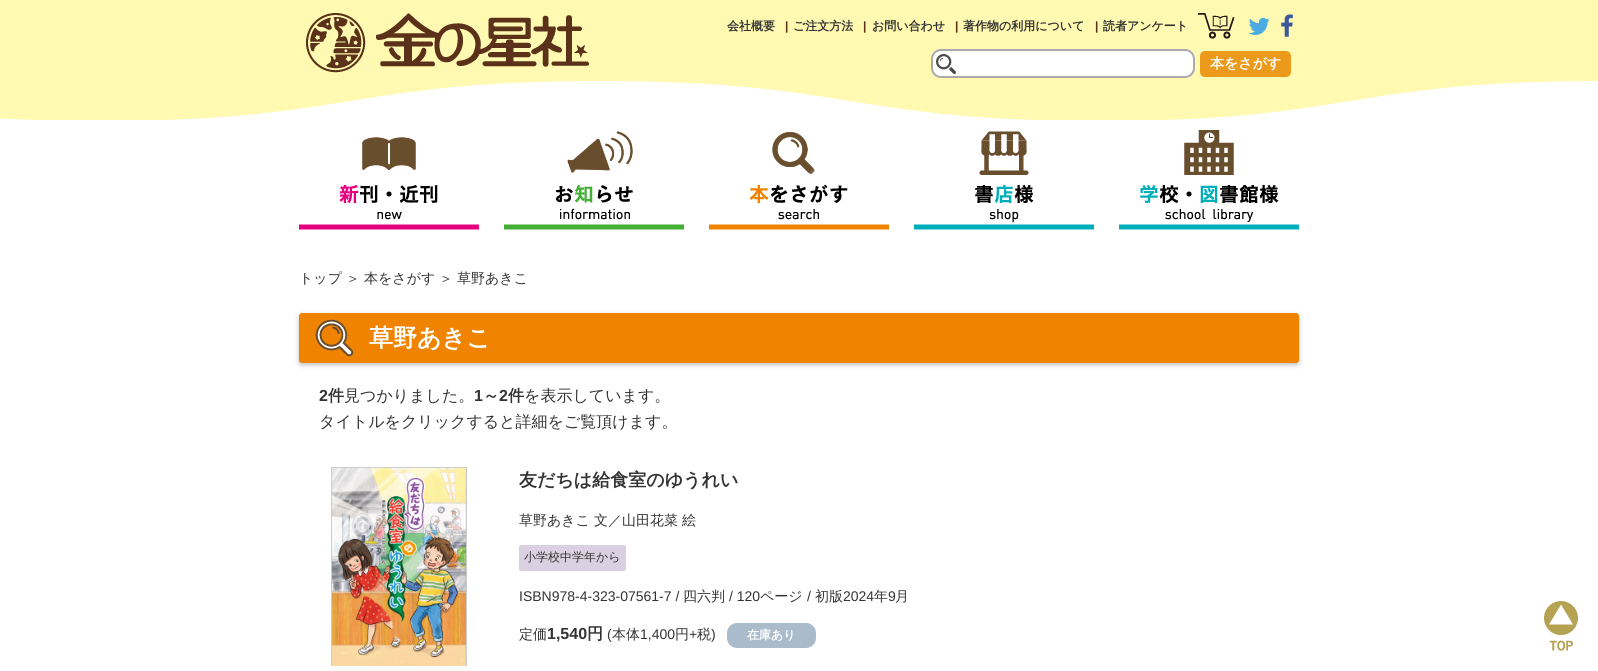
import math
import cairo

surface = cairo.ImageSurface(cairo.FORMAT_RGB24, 1598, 671)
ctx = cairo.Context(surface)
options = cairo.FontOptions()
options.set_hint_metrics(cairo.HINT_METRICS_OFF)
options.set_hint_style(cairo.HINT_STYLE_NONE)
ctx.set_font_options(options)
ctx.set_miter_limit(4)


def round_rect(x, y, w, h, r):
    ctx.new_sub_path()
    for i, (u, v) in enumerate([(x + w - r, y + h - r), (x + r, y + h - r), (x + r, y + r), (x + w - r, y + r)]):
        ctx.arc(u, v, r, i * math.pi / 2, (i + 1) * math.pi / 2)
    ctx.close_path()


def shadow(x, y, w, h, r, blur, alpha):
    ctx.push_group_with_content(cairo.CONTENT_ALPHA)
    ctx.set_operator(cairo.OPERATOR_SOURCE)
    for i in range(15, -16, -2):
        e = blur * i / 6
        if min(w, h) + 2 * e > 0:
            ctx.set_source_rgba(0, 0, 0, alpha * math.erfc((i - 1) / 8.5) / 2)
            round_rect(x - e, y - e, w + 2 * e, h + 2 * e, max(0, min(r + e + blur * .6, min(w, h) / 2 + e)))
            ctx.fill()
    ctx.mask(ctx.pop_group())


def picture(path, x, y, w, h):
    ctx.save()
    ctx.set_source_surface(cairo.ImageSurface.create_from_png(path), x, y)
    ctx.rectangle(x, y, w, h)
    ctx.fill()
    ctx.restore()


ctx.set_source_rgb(1, 1, 1)
ctx.paint()
picture("img1.png", 0, 0, 1598, 120)
picture("img2.png", 306, 13, 283, 60)
ctx.select_font_face("WenQuanYi Zen Hei", cairo.FONT_SLANT_NORMAL, cairo.FONT_WEIGHT_BOLD)
ctx.set_font_size(12)
ctx.set_source_rgb(0.2, 0.2, 0.2)
ctx.move_to(727, 30)
ctx.show_text("会社概要")
ctx.select_font_face("Liberation Sans", cairo.FONT_SLANT_NORMAL, cairo.FONT_WEIGHT_BOLD)
ctx.set_source_rgb(0.357, 0.196, 0.098)
ctx.move_to(785, 30)
ctx.show_text("|")
ctx.select_font_face("WenQuanYi Zen Hei", cairo.FONT_SLANT_NORMAL, cairo.FONT_WEIGHT_BOLD)
ctx.set_source_rgb(0.2, 0.2, 0.2)
ctx.move_to(793, 30)
ctx.show_text("ご注文方法")
ctx.select_font_face("Liberation Sans", cairo.FONT_SLANT_NORMAL, cairo.FONT_WEIGHT_BOLD)
ctx.set_source_rgb(0.357, 0.196, 0.098)
ctx.move_to(863, 30)
ctx.show_text("|")
ctx.select_font_face("WenQuanYi Zen Hei", cairo.FONT_SLANT_NORMAL, cairo.FONT_WEIGHT_BOLD)
ctx.set_source_rgb(0.2, 0.2, 0.2)
ctx.move_to(872, 30)
ctx.show_text("お問い合わせ")
ctx.select_font_face("Liberation Sans", cairo.FONT_SLANT_NORMAL, cairo.FONT_WEIGHT_BOLD)
ctx.set_source_rgb(0.357, 0.196, 0.098)
ctx.move_to(955, 30)
ctx.show_text("|")
ctx.select_font_face("WenQuanYi Zen Hei", cairo.FONT_SLANT_NORMAL, cairo.FONT_WEIGHT_BOLD)
ctx.set_source_rgb(0.2, 0.2, 0.2)
ctx.move_to(963, 30)
ctx.show_text("著作物の利用について")
ctx.select_font_face("Liberation Sans", cairo.FONT_SLANT_NORMAL, cairo.FONT_WEIGHT_BOLD)
ctx.set_source_rgb(0.357, 0.196, 0.098)
ctx.move_to(1095, 30)
ctx.show_text("|")
ctx.select_font_face("WenQuanYi Zen Hei", cairo.FONT_SLANT_NORMAL, cairo.FONT_WEIGHT_BOLD)
ctx.set_source_rgb(0.2, 0.2, 0.2)
ctx.move_to(1103, 30)
ctx.show_text("読者アンケート")
picture("img3.png", 1198, 13, 37, 26)
picture("img4.png", 1248, 17, 22, 18)
picture("img5.png", 1281, 14, 12, 23)
ctx.set_source_rgb(1, 1, 1)
round_rect(931, 49, 264, 29, 10)
ctx.fill()
picture("img6.png", 936, 54, 20, 20)
round_rect(932, 50, 262, 27, 9)
ctx.set_source_rgb(0.667, 0.667, 0.667)
ctx.stroke()
ctx.set_source_rgb(0.922, 0.604, 0.106)
round_rect(1200, 51, 91, 26, 5)
ctx.fill()
ctx.set_font_size(14)
ctx.set_source_rgb(1, 1, 1)
ctx.move_to(1210, 68)
ctx.show_text("本をさがす")
picture("img7.png", 299, 137, 180, 93)
picture("img8.png", 504, 131, 180, 99)
picture("img9.png", 709, 132, 180, 98)
picture("img10.png", 914, 131, 180, 99)
picture("img11.png", 1119, 130, 180, 100)
ctx.select_font_face("WenQuanYi Zen Hei Medium")
ctx.set_source_rgb(0.2, 0.2, 0.2)
ctx.move_to(299, 283)
ctx.show_text("トップ")
ctx.move_to(346, 283)
ctx.show_text("＞")
ctx.move_to(364, 283)
ctx.show_text("本をさがす")
ctx.move_to(439, 283)
ctx.show_text("＞")
ctx.move_to(457, 283)
ctx.show_text("草野あきこ")
ctx.set_source_rgb(0, 0, 0)
shadow(299, 315, 1000, 50, 3, 2.5, 0.26)
ctx.set_source_rgb(0.941, 0.514, 0)
round_rect(299, 313, 1000, 50, 3)
ctx.fill()
picture("img12.png", 315, 319, 39, 38)
ctx.select_font_face("WenQuanYi Zen Hei", cairo.FONT_SLANT_NORMAL, cairo.FONT_WEIGHT_BOLD)
ctx.set_font_size(24)
ctx.set_source_rgb(1, 1, 1)
ctx.move_to(369, 346)
ctx.show_text("草野あきこ")
ctx.select_font_face("Liberation Sans", cairo.FONT_SLANT_NORMAL, cairo.FONT_WEIGHT_BOLD)
ctx.set_font_size(16)
ctx.set_source_rgb(0.2, 0.2, 0.2)
ctx.move_to(319, 401)
ctx.show_text("2")
ctx.select_font_face("WenQuanYi Zen Hei", cairo.FONT_SLANT_NORMAL, cairo.FONT_WEIGHT_BOLD)
ctx.move_to(328, 401)
ctx.show_text("件")
ctx.select_font_face("WenQuanYi Zen Hei Medium")
ctx.move_to(344, 401)
ctx.show_text("見つかりました。")
ctx.select_font_face("Liberation Sans", cairo.FONT_SLANT_NORMAL, cairo.FONT_WEIGHT_BOLD)
ctx.move_to(474, 401)
ctx.show_text("1")
ctx.select_font_face("WenQuanYi Zen Hei", cairo.FONT_SLANT_NORMAL, cairo.FONT_WEIGHT_BOLD)
ctx.move_to(483, 401)
ctx.show_text("～")
ctx.select_font_face("Liberation Sans", cairo.FONT_SLANT_NORMAL, cairo.FONT_WEIGHT_BOLD)
ctx.move_to(499, 401)
ctx.show_text("2")
ctx.select_font_face("WenQuanYi Zen Hei", cairo.FONT_SLANT_NORMAL, cairo.FONT_WEIGHT_BOLD)
ctx.move_to(508, 401)
ctx.show_text("件")
ctx.select_font_face("WenQuanYi Zen Hei Medium")
ctx.move_to(524, 401)
ctx.show_text("を表示しています。")
ctx.move_to(319, 427)
ctx.show_text("タイトルをクリックすると詳細をご覧頂けます。")
ctx.save()
ctx.rectangle(299, 466, 1000, 200)
ctx.clip()
ctx.rectangle(331.5, 467.5, 135, 199)
ctx.set_source_rgb(0.8, 0.8, 0.8)
ctx.set_line_width(1)
ctx.stroke()
ctx.restore()
picture("img13.png", 332, 468, 134, 198)
ctx.select_font_face("WenQuanYi Zen Hei", cairo.FONT_SLANT_NORMAL, cairo.FONT_WEIGHT_BOLD)
ctx.set_font_size(18)
ctx.move_to(519, 486)
ctx.show_text("友だちは給食室のゆうれい")
ctx.select_font_face("WenQuanYi Zen Hei Medium")
ctx.set_font_size(14)
ctx.move_to(519, 525)
ctx.show_text("草野あきこ")
ctx.move_to(594, 525)
ctx.show_text("文／山田花菜")
ctx.move_to(682, 525)
ctx.show_text("絵")
ctx.set_source_rgb(0.859, 0.816, 0.886)
round_rect(519, 545, 107, 26, 2)
ctx.fill()
ctx.set_font_size(12)
ctx.set_source_rgb(0.2, 0.2, 0.2)
ctx.move_to(524, 561)
ctx.show_text("小学校中学年から")
ctx.select_font_face("Liberation Sans")
ctx.set_font_size(14)
ctx.move_to(519, 601)
ctx.show_text("ISBN978-4-323-07561-7 /")
ctx.select_font_face("WenQuanYi Zen Hei Medium")
ctx.move_to(683, 601)
ctx.show_text("四六判")
ctx.select_font_face("Liberation Sans")
ctx.move_to(729, 601)
ctx.show_text("/ 120")
ctx.select_font_face("WenQuanYi Zen Hei Medium")
ctx.move_to(760, 601)
ctx.show_text("ページ")
ctx.select_font_face("Liberation Sans")
ctx.move_to(807, 601)
ctx.show_text("/")
ctx.select_font_face("WenQuanYi Zen Hei Medium")
ctx.move_to(815, 601)
ctx.show_text("初版")
ctx.select_font_face("Liberation Sans")
ctx.move_to(843, 601)
ctx.show_text("2024")
ctx.select_font_face("WenQuanYi Zen Hei Medium")
ctx.move_to(874, 601)
ctx.show_text("年")
ctx.select_font_face("Liberation Sans")
ctx.move_to(888, 601)
ctx.show_text("9")
ctx.select_font_face("WenQuanYi Zen Hei Medium")
ctx.move_to(895, 601)
ctx.show_text("月")
ctx.move_to(519, 639)
ctx.show_text("定価")
ctx.select_font_face("Liberation Sans", cairo.FONT_SLANT_NORMAL, cairo.FONT_WEIGHT_BOLD)
ctx.set_font_size(16)
ctx.move_to(547, 639)
ctx.show_text("1,540")
ctx.select_font_face("WenQuanYi Zen Hei", cairo.FONT_SLANT_NORMAL, cairo.FONT_WEIGHT_BOLD)
ctx.move_to(587, 639)
ctx.show_text("円")
ctx.select_font_face("Liberation Sans")
ctx.set_font_size(14)
ctx.move_to(607, 639)
ctx.show_text("(")
ctx.select_font_face("WenQuanYi Zen Hei Medium")
ctx.move_to(612, 639)
ctx.show_text("本体")
ctx.select_font_face("Liberation Sans")
ctx.move_to(640, 639)
ctx.show_text("1,400")
ctx.select_font_face("WenQuanYi Zen Hei Medium")
ctx.move_to(675, 639)
ctx.show_text("円")
ctx.select_font_face("Liberation Sans")
ctx.move_to(689, 639)
ctx.show_text("+")
ctx.select_font_face("WenQuanYi Zen Hei Medium")
ctx.move_to(697, 639)
ctx.show_text("税")
ctx.select_font_face("Liberation Sans")
ctx.move_to(711, 639)
ctx.show_text(")")
ctx.set_source_rgb(0.667, 0.733, 0.8)
round_rect(727, 623, 89, 25, 10)
ctx.fill()
ctx.select_font_face("WenQuanYi Zen Hei", cairo.FONT_SLANT_NORMAL, cairo.FONT_WEIGHT_BOLD)
ctx.set_font_size(12)
ctx.set_source_rgb(1, 1, 1)
ctx.move_to(747, 639)
ctx.show_text("在庫あり")
picture("img14.png", 1544, 601, 34, 50)
surface.write_to_png("page.png")
